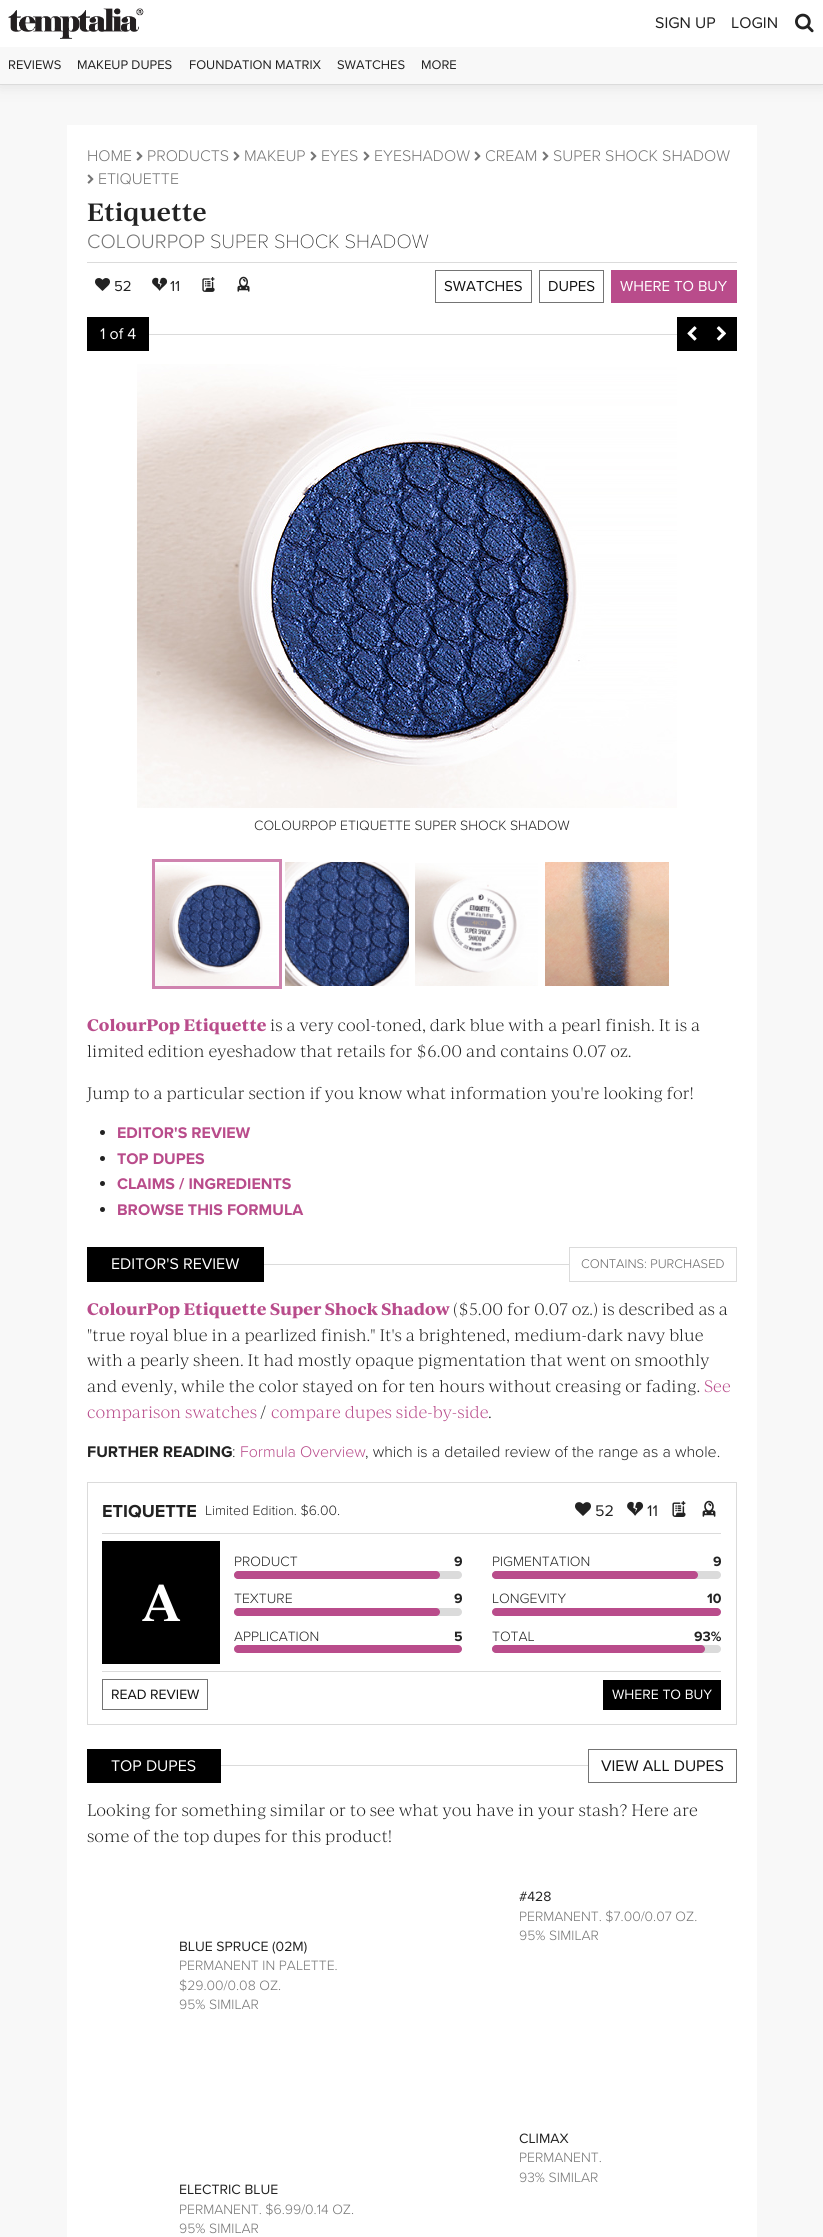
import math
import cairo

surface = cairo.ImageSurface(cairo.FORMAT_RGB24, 823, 2237)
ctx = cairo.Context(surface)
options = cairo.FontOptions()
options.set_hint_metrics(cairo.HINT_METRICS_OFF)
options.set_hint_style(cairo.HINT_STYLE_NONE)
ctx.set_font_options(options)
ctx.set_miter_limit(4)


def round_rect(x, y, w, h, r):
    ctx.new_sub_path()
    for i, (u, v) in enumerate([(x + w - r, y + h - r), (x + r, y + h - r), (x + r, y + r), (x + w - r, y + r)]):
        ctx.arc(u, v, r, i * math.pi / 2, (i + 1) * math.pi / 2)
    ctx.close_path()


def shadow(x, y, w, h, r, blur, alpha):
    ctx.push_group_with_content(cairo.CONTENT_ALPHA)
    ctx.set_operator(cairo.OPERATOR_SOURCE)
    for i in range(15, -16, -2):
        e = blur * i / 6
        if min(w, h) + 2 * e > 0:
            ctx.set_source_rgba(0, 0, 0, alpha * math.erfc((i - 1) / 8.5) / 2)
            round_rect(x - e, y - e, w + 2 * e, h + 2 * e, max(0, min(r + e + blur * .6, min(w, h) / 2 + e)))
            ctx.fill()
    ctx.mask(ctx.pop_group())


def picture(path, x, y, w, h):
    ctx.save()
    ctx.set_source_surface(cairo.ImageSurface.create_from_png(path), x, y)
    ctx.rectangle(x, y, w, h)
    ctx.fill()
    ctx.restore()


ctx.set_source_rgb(0.969, 0.969, 0.969)
ctx.paint()
ctx.set_source_rgb(0.867, 0.867, 0.867)
shadow(0, 0, 823, 85, 0, 8, 1)
ctx.set_source_rgb(1, 1, 1)
ctx.rectangle(0, 0, 823, 47)
ctx.fill()
ctx.set_source_rgb(0.859, 0.859, 0.859)
ctx.rectangle(0, 84, 823, 1)
ctx.fill()
picture("img1.png", 8, 8, 136, 31)
ctx.select_font_face("Proxima Nova")
ctx.set_font_size(16)
ctx.set_source_rgb(0.133, 0.133, 0.133)
ctx.move_to(655, 28)
ctx.show_text("SIGN UP")
ctx.move_to(731, 28)
ctx.show_text("LOGIN")
picture("img2.png", 795, 13, 19, 20)
ctx.set_source_rgb(0.969, 0.969, 0.969)
ctx.rectangle(0, 47, 823, 37)
ctx.fill()
ctx.set_font_size(13)
ctx.set_source_rgb(0.133, 0.133, 0.133)
ctx.move_to(8, 69)
ctx.show_text("REVIEWS")
ctx.move_to(77, 69)
ctx.show_text("MAKEUP DUPES")
ctx.move_to(189, 69)
ctx.show_text("FOUNDATION MATRIX")
ctx.move_to(337, 69)
ctx.show_text("SWATCHES")
ctx.move_to(421, 69)
ctx.show_text("MORE")
ctx.set_source_rgb(1, 1, 1)
ctx.rectangle(67, 125, 690, 2112)
ctx.fill()
ctx.select_font_face("Proxima Nova Light")
ctx.set_font_size(16)
ctx.set_source_rgb(0.455, 0.455, 0.455)
ctx.move_to(87, 161)
ctx.show_text("HOME")
picture("img3.png", 136, 151, 7, 10)
ctx.move_to(147, 161)
ctx.show_text("PRODUCTS")
picture("img3.png", 233, 151, 7, 10)
ctx.move_to(244, 161)
ctx.show_text("MAKEUP")
picture("img3.png", 310, 151, 7, 10)
ctx.move_to(321, 161)
ctx.show_text("EYES")
picture("img3.png", 363, 151, 7, 10)
ctx.move_to(374, 161)
ctx.show_text("EYESHADOW")
picture("img3.png", 474, 151, 7, 10)
ctx.move_to(485, 161)
ctx.show_text("CREAM")
picture("img3.png", 542, 151, 7, 10)
ctx.move_to(553, 161)
ctx.show_text("SUPER SHOCK SHADOW")
picture("img3.png", 87, 174, 7, 10)
ctx.move_to(98, 184)
ctx.show_text("ETIQUETTE")
ctx.select_font_face("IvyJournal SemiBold")
ctx.set_font_size(24)
ctx.set_source_rgb(0.133, 0.133, 0.133)
ctx.move_to(87, 221)
ctx.show_text("Etiquette")
ctx.set_source_rgb(0.859, 0.859, 0.859)
ctx.rectangle(87, 262, 650, 1)
ctx.fill()
ctx.select_font_face("Proxima Nova Light")
ctx.set_font_size(20)
ctx.set_source_rgb(0.455, 0.455, 0.455)
ctx.move_to(87, 248)
ctx.show_text("COLOURPOP")
ctx.select_font_face("Proxima Nova Thin")
ctx.set_source_rgb(0.133, 0.133, 0.133)
ctx.move_to(210, 248)
ctx.show_text("SUPER SHOCK SHADOW")
picture("img4.png", 95, 278, 15, 13)
ctx.select_font_face("Proxima Nova")
ctx.set_font_size(15)
ctx.move_to(114, 291)
ctx.show_text("52")
picture("img5.png", 152, 277, 16, 14)
ctx.move_to(170, 291)
ctx.show_text("11")
picture("img6.png", 202, 277, 13, 15)
picture("img7.png", 237, 276, 13, 16)
ctx.rectangle(435.5, 270.5, 96, 32)
ctx.set_source_rgb(0.455, 0.455, 0.455)
ctx.set_line_width(1)
ctx.stroke()
ctx.set_source_rgb(0.067, 0.067, 0.067)
ctx.move_to(444, 291)
ctx.show_text("SWATCHES")
ctx.rectangle(539.5, 270.5, 64, 32)
ctx.set_source_rgb(0.455, 0.455, 0.455)
ctx.stroke()
ctx.set_source_rgb(0.067, 0.067, 0.067)
ctx.move_to(548, 291)
ctx.show_text("DUPES")
ctx.set_source_rgb(0.725, 0.298, 0.545)
ctx.rectangle(611, 270, 126, 33)
ctx.fill()
ctx.set_source_rgb(1, 1, 1)
ctx.move_to(620, 291)
ctx.show_text("WHERE TO BUY")
ctx.set_source_rgb(0, 0, 0)
ctx.rectangle(87, 317, 62, 34)
ctx.fill()
ctx.set_font_size(16)
ctx.set_source_rgb(1, 1, 1)
ctx.move_to(100, 339)
ctx.show_text("1 of 4")
ctx.set_source_rgb(0.859, 0.859, 0.859)
ctx.rectangle(149, 334, 528, 1)
ctx.fill()
ctx.set_source_rgb(0, 0, 0)
ctx.rectangle(677, 317, 60, 34)
ctx.fill()
picture("img8.png", 687, 326, 10, 15)
picture("img9.png", 716, 326, 10, 15)
picture("img10.png", 137, 364, 540, 444)
ctx.select_font_face("Proxima Nova Light")
ctx.set_font_size(14)
ctx.set_source_rgb(0.133, 0.133, 0.133)
ctx.move_to(254, 830)
ctx.show_text("COLOURPOP ETIQUETTE SUPER SHOCK SHADOW")
ctx.rectangle(153.5, 860.5, 127, 127)
ctx.set_source_rgb(0.812, 0.514, 0.686)
ctx.set_line_width(3)
ctx.stroke()
picture("img11.png", 155, 865, 122, 121)
picture("img12.png", 285, 862, 124, 124)
picture("img13.png", 415, 863, 123, 123)
picture("img14.png", 545, 862, 124, 124)
ctx.select_font_face("IvyJournal", cairo.FONT_SLANT_NORMAL, cairo.FONT_WEIGHT_BOLD)
ctx.set_font_size(16)
ctx.set_source_rgb(0.725, 0.298, 0.545)
ctx.move_to(87, 1031)
ctx.show_text("ColourPop Etiquette")
ctx.select_font_face("IvyJournal Light")
ctx.set_source_rgb(0.133, 0.133, 0.133)
ctx.move_to(270, 1031)
ctx.show_text("is a very cool-toned, dark blue with a pearl finish. It is a")
ctx.move_to(87, 1057)
ctx.show_text("limited edition eyeshadow that retails for $6.00 and contains 0.07 oz.")
ctx.move_to(87, 1099)
ctx.show_text("Jump to a particular section if you know what information you're looking for!")
ctx.new_path()
ctx.arc(102.5, 1132.5, 2.5, 0, 2 * math.pi)
ctx.fill()
ctx.select_font_face("Proxima Nova", cairo.FONT_SLANT_NORMAL, cairo.FONT_WEIGHT_BOLD)
ctx.set_source_rgb(0.725, 0.298, 0.545)
ctx.move_to(117, 1138)
ctx.show_text("EDITOR'S REVIEW")
ctx.set_source_rgb(0.133, 0.133, 0.133)
ctx.new_path()
ctx.arc(102.5, 1158.5, 2.5, 0, 2 * math.pi)
ctx.fill()
ctx.set_source_rgb(0.725, 0.298, 0.545)
ctx.move_to(117, 1164)
ctx.show_text("TOP DUPES")
ctx.set_source_rgb(0.133, 0.133, 0.133)
ctx.new_path()
ctx.arc(102.5, 1183.5, 2.5, 0, 2 * math.pi)
ctx.fill()
ctx.set_source_rgb(0.725, 0.298, 0.545)
ctx.move_to(117, 1189)
ctx.show_text("CLAIMS / INGREDIENTS")
ctx.set_source_rgb(0.133, 0.133, 0.133)
ctx.new_path()
ctx.arc(102.5, 1209.5, 2.5, 0, 2 * math.pi)
ctx.fill()
ctx.set_source_rgb(0.725, 0.298, 0.545)
ctx.move_to(117, 1215)
ctx.show_text("BROWSE THIS FORMULA")
ctx.set_source_rgb(0, 0, 0)
ctx.rectangle(87, 1247, 177, 35)
ctx.fill()
ctx.select_font_face("Proxima Nova")
ctx.set_source_rgb(1, 1, 1)
ctx.move_to(111, 1269)
ctx.show_text("EDITOR'S REVIEW")
ctx.set_source_rgb(0.859, 0.859, 0.859)
ctx.rectangle(264, 1264, 305, 1)
ctx.fill()
ctx.rectangle(569.5, 1247.5, 167, 34)
ctx.set_line_width(1)
ctx.stroke()
ctx.select_font_face("Proxima Nova Light")
ctx.set_font_size(13)
ctx.set_source_rgb(0.4, 0.4, 0.4)
ctx.move_to(581, 1268)
ctx.show_text("CONTAINS: PURCHASED")
ctx.select_font_face("IvyJournal", cairo.FONT_SLANT_NORMAL, cairo.FONT_WEIGHT_BOLD)
ctx.set_font_size(16)
ctx.set_source_rgb(0.725, 0.298, 0.545)
ctx.move_to(87, 1315)
ctx.show_text("ColourPop Etiquette Super Shock Shadow")
ctx.select_font_face("IvyJournal Light")
ctx.set_source_rgb(0.133, 0.133, 0.133)
ctx.move_to(453, 1315)
ctx.show_text("($5.00 for 0.07 oz.) is described as a")
ctx.move_to(87, 1341)
ctx.show_text("\"true royal blue in a pearlized finish.\" It's a brightened, medium-dark navy blue")
ctx.move_to(87, 1366)
ctx.show_text("with a pearly sheen. It had mostly opaque pigmentation that went on smoothly")
ctx.move_to(87, 1392)
ctx.show_text("and evenly, while the color stayed on for ten hours without creasing or fading.")
ctx.set_source_rgb(0.725, 0.298, 0.545)
ctx.move_to(704, 1392)
ctx.show_text("See")
ctx.move_to(87, 1418)
ctx.show_text("comparison swatches")
ctx.set_source_rgb(0.133, 0.133, 0.133)
ctx.move_to(260, 1418)
ctx.show_text("/")
ctx.set_source_rgb(0.725, 0.298, 0.545)
ctx.move_to(271, 1418)
ctx.show_text("compare dupes side-by-side")
ctx.set_source_rgb(0.133, 0.133, 0.133)
ctx.move_to(488, 1418)
ctx.show_text(".")
ctx.select_font_face("Proxima Nova", cairo.FONT_SLANT_NORMAL, cairo.FONT_WEIGHT_BOLD)
ctx.move_to(87, 1457)
ctx.show_text("FURTHER READING")
ctx.select_font_face("Proxima Nova Light")
ctx.move_to(232, 1457)
ctx.show_text(":")
ctx.set_source_rgb(0.725, 0.298, 0.545)
ctx.move_to(240, 1457)
ctx.show_text("Formula Overview")
ctx.set_source_rgb(0.133, 0.133, 0.133)
ctx.move_to(365, 1457)
ctx.show_text(", which is a detailed review of the range as a whole.")
ctx.rectangle(87.5, 1482.5, 649, 242)
ctx.set_source_rgb(0.859, 0.859, 0.859)
ctx.stroke()
ctx.rectangle(102, 1533, 619, 1)
ctx.fill()
ctx.select_font_face("Proxima Nova", cairo.FONT_SLANT_NORMAL, cairo.FONT_WEIGHT_BOLD)
ctx.set_font_size(18)
ctx.set_source_rgb(0.133, 0.133, 0.133)
ctx.move_to(102, 1517)
ctx.show_text("ETIQUETTE")
ctx.select_font_face("Proxima Nova Light")
ctx.set_font_size(14)
ctx.move_to(205, 1515)
ctx.show_text("Limited Edition. $6.00.")
picture("img15.png", 575, 1502, 16, 14)
ctx.select_font_face("Proxima Nova")
ctx.set_font_size(16)
ctx.move_to(595, 1516)
ctx.show_text("52")
picture("img16.png", 627, 1501, 17, 15)
ctx.move_to(647, 1516)
ctx.show_text("11")
picture("img17.png", 672, 1501, 14, 16)
picture("img18.png", 702, 1500, 14, 17)
ctx.set_source_rgb(0, 0, 0)
ctx.rectangle(102, 1541, 118, 123)
ctx.fill()
ctx.select_font_face("IvyJournal SemiBold")
ctx.set_font_size(50)
ctx.set_source_rgb(1, 1, 1)
ctx.move_to(142, 1621)
ctx.show_text("A")
ctx.select_font_face("Proxima Nova Light")
ctx.set_font_size(14)
ctx.set_source_rgb(0.133, 0.133, 0.133)
ctx.move_to(234, 1566)
ctx.show_text("PRODUCT")
ctx.select_font_face("Proxima Nova", cairo.FONT_SLANT_NORMAL, cairo.FONT_WEIGHT_BOLD)
ctx.move_to(454, 1566)
ctx.show_text("9")
ctx.set_source_rgb(0.859, 0.859, 0.859)
round_rect(234, 1571, 228, 8, 4)
ctx.fill()
ctx.set_source_rgb(0.725, 0.298, 0.545)
round_rect(234, 1571, 206, 8, 4)
ctx.fill()
ctx.select_font_face("Proxima Nova Light")
ctx.set_source_rgb(0.133, 0.133, 0.133)
ctx.move_to(492, 1566)
ctx.show_text("PIGMENTATION")
ctx.select_font_face("Proxima Nova", cairo.FONT_SLANT_NORMAL, cairo.FONT_WEIGHT_BOLD)
ctx.move_to(713, 1566)
ctx.show_text("9")
ctx.set_source_rgb(0.859, 0.859, 0.859)
round_rect(492, 1571, 229, 8, 4)
ctx.fill()
ctx.set_source_rgb(0.725, 0.298, 0.545)
round_rect(492, 1571, 206, 8, 4)
ctx.fill()
ctx.select_font_face("Proxima Nova Light")
ctx.set_source_rgb(0.133, 0.133, 0.133)
ctx.move_to(234, 1603)
ctx.show_text("TEXTURE")
ctx.select_font_face("Proxima Nova", cairo.FONT_SLANT_NORMAL, cairo.FONT_WEIGHT_BOLD)
ctx.move_to(454, 1603)
ctx.show_text("9")
ctx.set_source_rgb(0.859, 0.859, 0.859)
round_rect(234, 1608, 228, 8, 4)
ctx.fill()
ctx.set_source_rgb(0.725, 0.298, 0.545)
round_rect(234, 1608, 206, 8, 4)
ctx.fill()
ctx.select_font_face("Proxima Nova Light")
ctx.set_source_rgb(0.133, 0.133, 0.133)
ctx.move_to(492, 1603)
ctx.show_text("LONGEVITY")
ctx.select_font_face("Proxima Nova", cairo.FONT_SLANT_NORMAL, cairo.FONT_WEIGHT_BOLD)
ctx.move_to(707, 1603)
ctx.show_text("10")
ctx.set_source_rgb(0.725, 0.298, 0.545)
round_rect(492, 1608, 229, 8, 4)
ctx.fill()
ctx.select_font_face("Proxima Nova Light")
ctx.set_source_rgb(0.133, 0.133, 0.133)
ctx.move_to(234, 1641)
ctx.show_text("APPLICATION")
ctx.select_font_face("Proxima Nova", cairo.FONT_SLANT_NORMAL, cairo.FONT_WEIGHT_BOLD)
ctx.move_to(454, 1641)
ctx.show_text("5")
ctx.set_source_rgb(0.725, 0.298, 0.545)
round_rect(234, 1645, 228, 8, 4)
ctx.fill()
ctx.select_font_face("Proxima Nova Light")
ctx.set_source_rgb(0.133, 0.133, 0.133)
ctx.move_to(492, 1641)
ctx.show_text("TOTAL")
ctx.select_font_face("Proxima Nova", cairo.FONT_SLANT_NORMAL, cairo.FONT_WEIGHT_BOLD)
ctx.move_to(694, 1641)
ctx.show_text("93%")
ctx.set_source_rgb(0.859, 0.859, 0.859)
round_rect(492, 1645, 229, 8, 4)
ctx.fill()
ctx.set_source_rgb(0.725, 0.298, 0.545)
round_rect(492, 1645, 213, 8, 4)
ctx.fill()
ctx.set_source_rgb(0.859, 0.859, 0.859)
ctx.rectangle(102, 1671, 619, 1)
ctx.fill()
ctx.rectangle(102.5, 1679.5, 105, 30)
ctx.set_source_rgb(0.455, 0.455, 0.455)
ctx.stroke()
ctx.select_font_face("Proxima Nova")
ctx.set_source_rgb(0.067, 0.067, 0.067)
ctx.move_to(111, 1699)
ctx.show_text("READ REVIEW")
ctx.set_source_rgb(0, 0, 0)
ctx.rectangle(603, 1680, 118, 30)
ctx.fill()
ctx.set_source_rgb(1, 1, 1)
ctx.move_to(612, 1699)
ctx.show_text("WHERE TO BUY")
ctx.set_source_rgb(0, 0, 0)
ctx.rectangle(87, 1749, 134, 34)
ctx.fill()
ctx.set_font_size(16)
ctx.set_source_rgb(1, 1, 1)
ctx.move_to(111, 1771)
ctx.show_text("TOP DUPES")
ctx.set_source_rgb(0.859, 0.859, 0.859)
ctx.rectangle(221, 1765, 367, 1)
ctx.fill()
ctx.rectangle(588.5, 1749.5, 148, 33)
ctx.set_source_rgb(0.455, 0.455, 0.455)
ctx.stroke()
ctx.set_source_rgb(0.067, 0.067, 0.067)
ctx.move_to(601, 1771)
ctx.show_text("VIEW ALL DUPES")
ctx.select_font_face("IvyJournal Light")
ctx.set_source_rgb(0.133, 0.133, 0.133)
ctx.move_to(87, 1816)
ctx.show_text("Looking for something similar or to see what you have in your stash? Here are")
ctx.move_to(87, 1842)
ctx.show_text("some of the top dupes for this product!")
ctx.select_font_face("Proxima Nova")
ctx.set_font_size(14)
ctx.move_to(519, 1901)
ctx.show_text("#428")
ctx.select_font_face("Proxima Nova Light")
ctx.set_source_rgb(0.455, 0.455, 0.455)
ctx.move_to(519, 1921)
ctx.show_text("PERMANENT. $7.00/0.07 OZ.")
ctx.move_to(519, 1940)
ctx.show_text("95% SIMILAR")
ctx.select_font_face("Proxima Nova")
ctx.set_source_rgb(0.133, 0.133, 0.133)
ctx.move_to(179, 1951)
ctx.show_text("BLUE SPRUCE (02M)")
ctx.select_font_face("Proxima Nova Light")
ctx.set_source_rgb(0.455, 0.455, 0.455)
ctx.move_to(179, 1970)
ctx.show_text("PERMANENT IN PALETTE.")
ctx.move_to(179, 1990)
ctx.show_text("$29.00/0.08 OZ.")
ctx.move_to(179, 2009)
ctx.show_text("95% SIMILAR")
ctx.select_font_face("Proxima Nova")
ctx.set_source_rgb(0.133, 0.133, 0.133)
ctx.move_to(519, 2143)
ctx.show_text("CLIMAX")
ctx.select_font_face("Proxima Nova Light")
ctx.set_source_rgb(0.455, 0.455, 0.455)
ctx.move_to(519, 2162)
ctx.show_text("PERMANENT.")
ctx.move_to(519, 2182)
ctx.show_text("93% SIMILAR")
ctx.select_font_face("Proxima Nova")
ctx.set_source_rgb(0.133, 0.133, 0.133)
ctx.move_to(179, 2194)
ctx.show_text("ELECTRIC BLUE")
ctx.select_font_face("Proxima Nova Light")
ctx.set_source_rgb(0.455, 0.455, 0.455)
ctx.move_to(179, 2214)
ctx.show_text("PERMANENT. $6.99/0.14 OZ.")
ctx.move_to(179, 2233)
ctx.show_text("95% SIMILAR")
surface.write_to_png("page.png")
